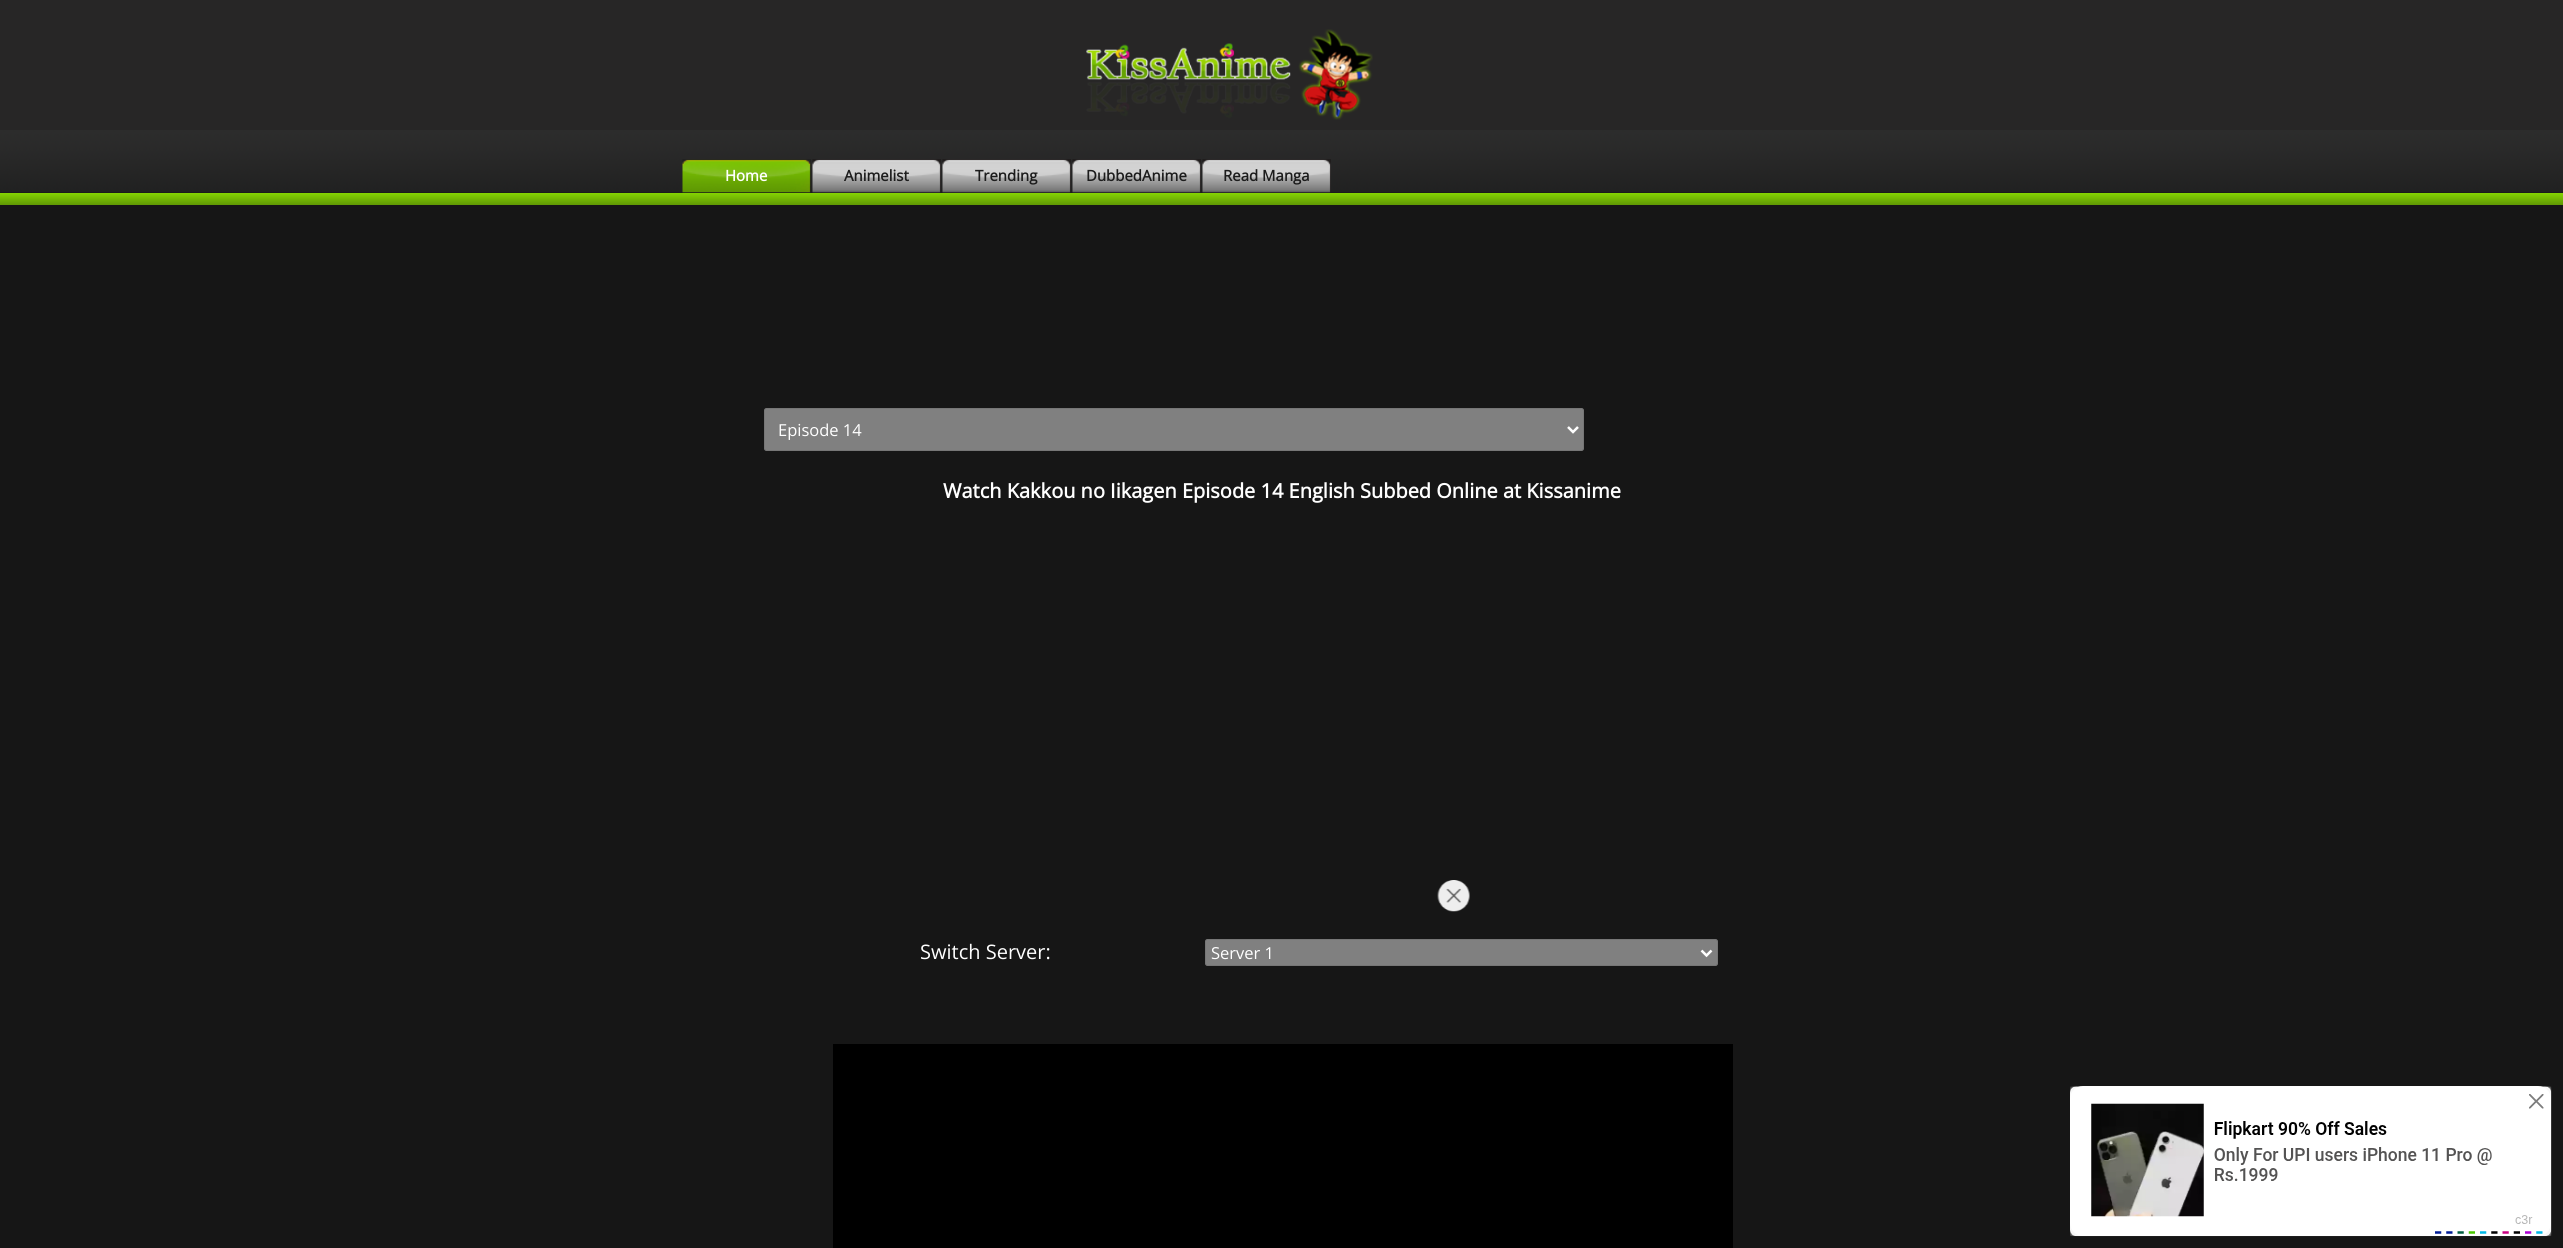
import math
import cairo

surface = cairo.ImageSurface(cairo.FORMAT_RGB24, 2563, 1248)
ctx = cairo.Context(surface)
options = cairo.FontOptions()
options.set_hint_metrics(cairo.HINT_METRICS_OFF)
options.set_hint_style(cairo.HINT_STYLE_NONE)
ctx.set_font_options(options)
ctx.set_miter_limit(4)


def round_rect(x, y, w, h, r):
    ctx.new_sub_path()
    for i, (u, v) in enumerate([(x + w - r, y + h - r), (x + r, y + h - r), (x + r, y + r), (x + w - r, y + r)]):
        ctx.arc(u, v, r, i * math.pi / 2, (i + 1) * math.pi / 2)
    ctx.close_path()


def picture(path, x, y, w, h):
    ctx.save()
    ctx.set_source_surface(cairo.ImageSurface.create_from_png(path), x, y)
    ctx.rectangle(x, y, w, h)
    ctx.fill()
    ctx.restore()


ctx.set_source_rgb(0.086, 0.086, 0.086)
ctx.paint()
ctx.set_source_rgb(0.153, 0.149, 0.149)
ctx.rectangle(0, 0, 2563, 130)
ctx.fill()
picture("img1.png", 1086, 29, 287, 91)
picture("img2.png", 0, 130, 2563, 63)
picture("img3.png", 682, 159, 129, 34)
ctx.select_font_face("Open Sans", cairo.FONT_SLANT_NORMAL, cairo.FONT_WEIGHT_BOLD)
ctx.set_font_size(15)
ctx.set_source_rgb(1, 1, 1)
ctx.move_to(725, 181)
ctx.show_text("Home")
picture("img4.png", 812, 159, 129, 34)
ctx.set_source_rgb(0.11, 0.11, 0.11)
ctx.move_to(844, 181)
ctx.show_text("Animelist")
picture("img4.png", 942, 159, 129, 34)
ctx.move_to(975, 181)
ctx.show_text("Trending")
picture("img5.png", 1072, 159, 129, 34)
ctx.move_to(1086, 181)
ctx.show_text("DubbedAnime")
picture("img6.png", 1202, 159, 129, 34)
ctx.move_to(1223, 181)
ctx.show_text("Read Manga")
gradient = cairo.LinearGradient(1282, 192, 1282, 205)
gradient.add_color_stop_rgba(0, 0.533, 0.851, 0.008, 1)
gradient.add_color_stop_rgba(1, 0.373, 0.596, 0.016, 1)
ctx.set_source(gradient)
ctx.rectangle(0, 193, 2563, 12)
ctx.fill()
ctx.set_source_rgb(0.502, 0.502, 0.502)
round_rect(764.5, 408.5, 819, 42, 2)
ctx.fill_preserve()
ctx.set_source_rgb(0.463, 0.463, 0.463)
ctx.set_line_width(1)
ctx.stroke()
ctx.new_path()
ctx.move_to(1568, 427)
ctx.line_to(1573, 432)
ctx.line_to(1578, 427)
ctx.set_source_rgb(1, 1, 1)
ctx.set_line_width(2.5)
ctx.stroke()
ctx.select_font_face("Open Sans")
ctx.set_font_size(16.5)
ctx.move_to(778, 436)
ctx.show_text("Episode 14")
ctx.select_font_face("Open Sans", cairo.FONT_SLANT_NORMAL, cairo.FONT_WEIGHT_BOLD)
ctx.set_font_size(20)
ctx.move_to(943, 498)
ctx.show_text("Watch Kakkou no Iikagen Episode 14 English Subbed Online at Kissanime")
picture("img7.png", 1437, 880, 33, 32)
ctx.select_font_face("Open Sans")
ctx.move_to(920, 959)
ctx.show_text("Switch Server:")
ctx.set_source_rgb(0.502, 0.502, 0.502)
round_rect(1205.5, 939.5, 512, 26, 2)
ctx.fill_preserve()
ctx.set_source_rgb(0.463, 0.463, 0.463)
ctx.set_line_width(1)
ctx.stroke()
ctx.new_path()
ctx.move_to(1701.5, 950.5)
ctx.line_to(1706.5, 955.5)
ctx.line_to(1711.5, 950.5)
ctx.set_source_rgb(1, 1, 1)
ctx.set_line_width(2.5)
ctx.stroke()
ctx.set_font_size(16.5)
ctx.move_to(1211, 959)
ctx.show_text("Server 1")
ctx.set_source_rgb(0, 0, 0)
ctx.rectangle(833, 1044, 900, 204)
ctx.fill()
ctx.set_source_rgb(1, 1, 1)
round_rect(2070, 1086, 481, 150, 13)
ctx.fill()
picture("img8.png", 2070, 1086, 482, 151)
surface.write_to_png("page.png")
